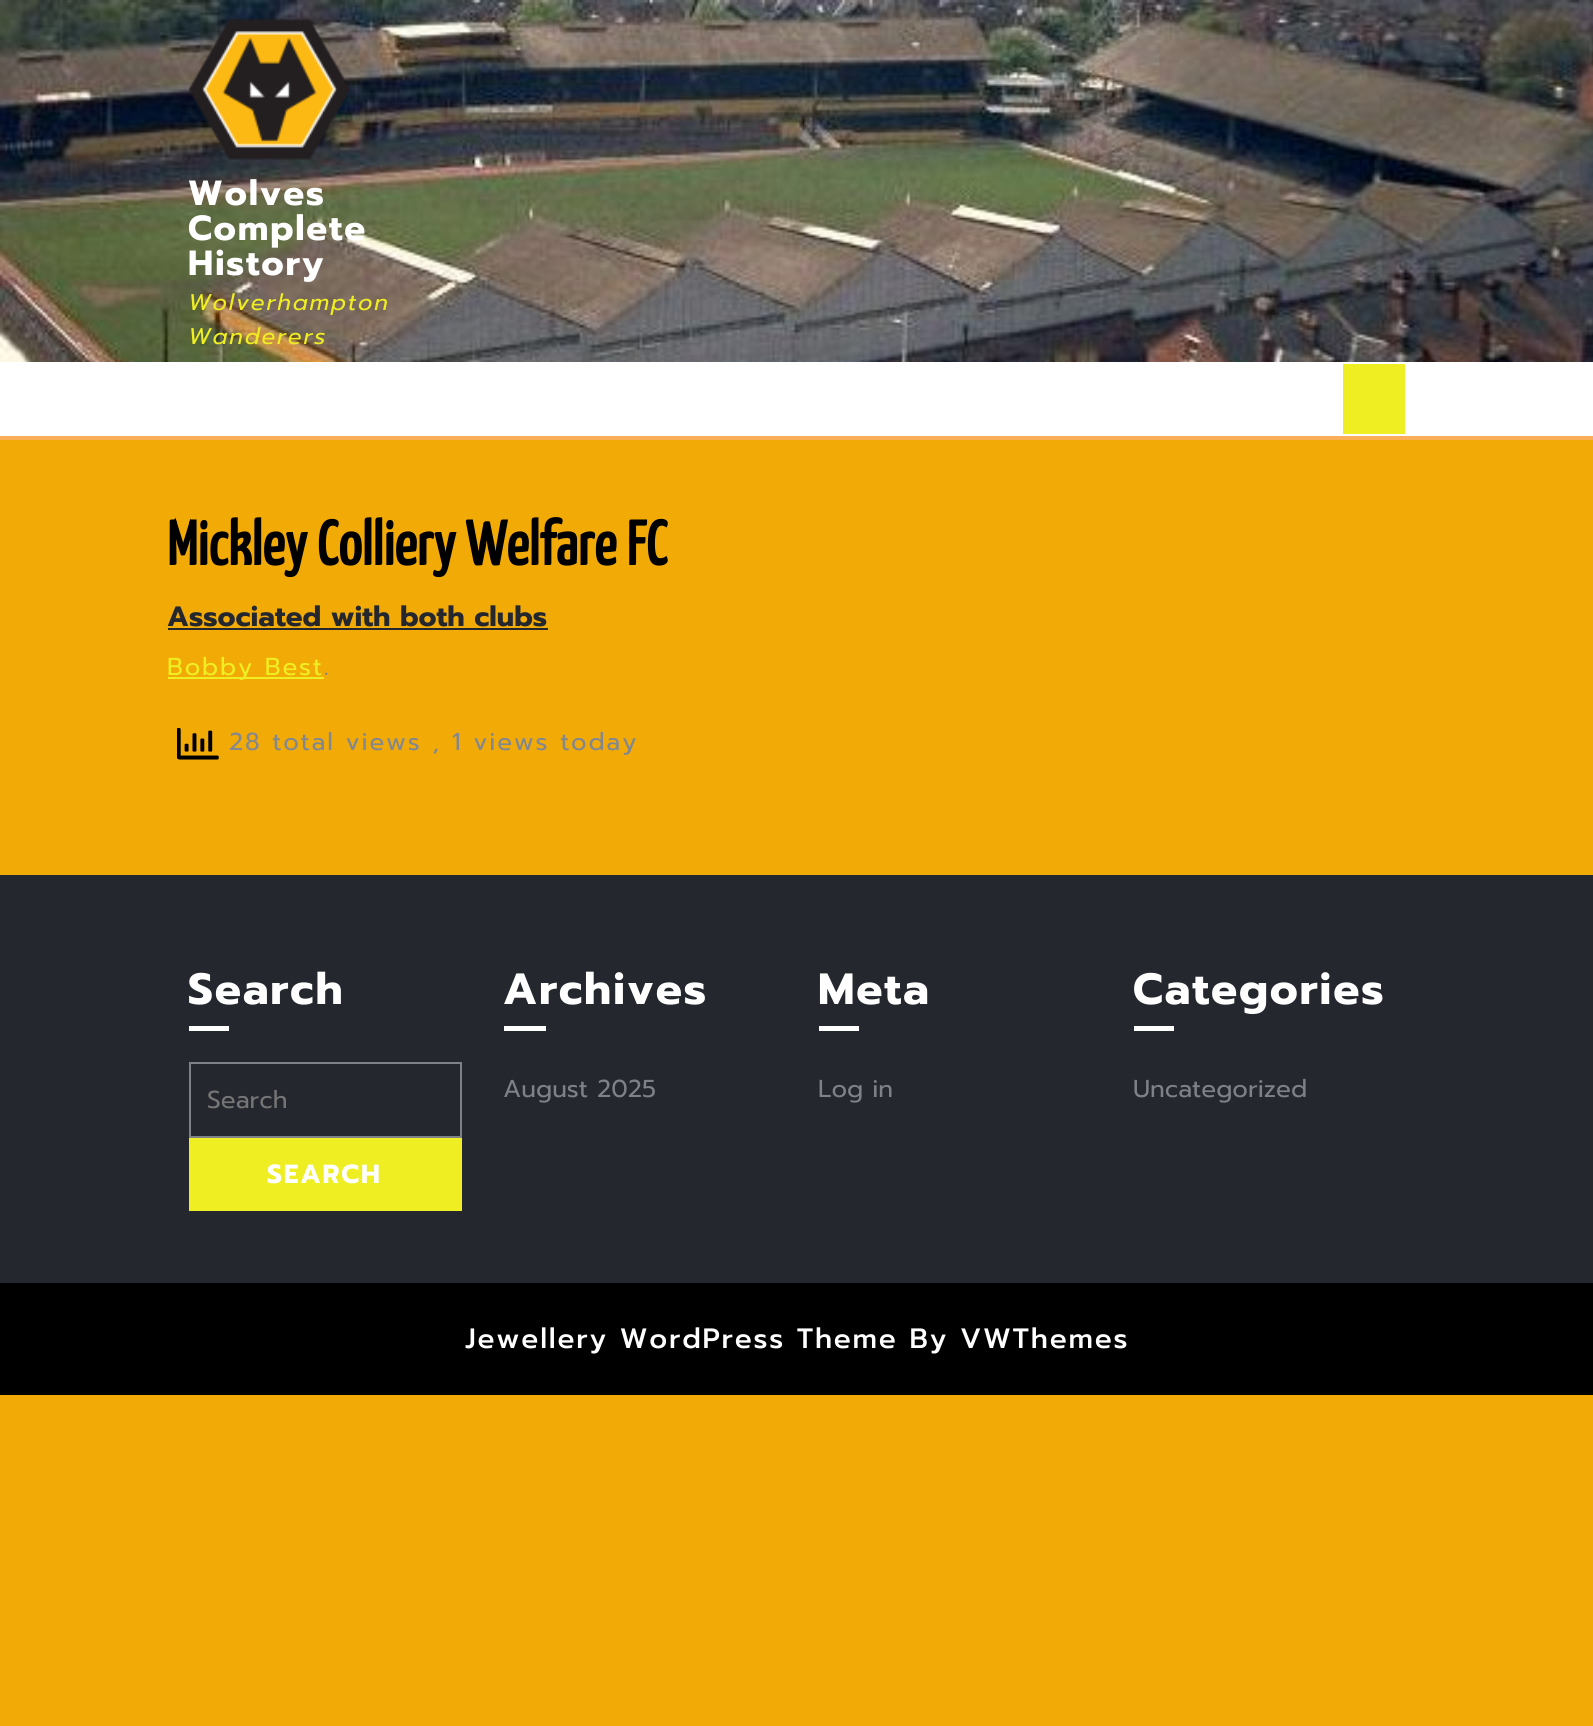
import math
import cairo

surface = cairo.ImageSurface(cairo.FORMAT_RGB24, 1593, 1726)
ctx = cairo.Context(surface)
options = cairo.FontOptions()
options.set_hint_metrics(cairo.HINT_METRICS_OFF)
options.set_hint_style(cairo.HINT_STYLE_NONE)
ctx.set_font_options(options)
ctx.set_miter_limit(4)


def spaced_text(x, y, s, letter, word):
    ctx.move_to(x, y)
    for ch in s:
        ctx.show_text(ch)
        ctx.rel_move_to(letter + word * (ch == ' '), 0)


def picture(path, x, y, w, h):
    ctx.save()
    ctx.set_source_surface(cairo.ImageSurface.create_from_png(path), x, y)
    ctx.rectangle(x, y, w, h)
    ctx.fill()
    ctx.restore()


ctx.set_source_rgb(0.949, 0.671, 0.027)
ctx.paint()
picture("img1.png", 0, 0, 1593, 362)
picture("img2.png", 189, 18, 161, 142)
ctx.select_font_face("Prompt", cairo.FONT_SLANT_NORMAL, cairo.FONT_WEIGHT_BOLD)
ctx.set_font_size(35)
ctx.set_source_rgb(1, 1, 1)
spaced_text(188, 205, "Wolves", 1.75, 0)
spaced_text(188, 240, "Complete", 1.75, 0)
spaced_text(188, 275, "History", 1.75, 0)
ctx.select_font_face("Prompt", cairo.FONT_SLANT_ITALIC)
ctx.set_font_size(22.75)
ctx.set_source_rgb(0.933, 0.933, 0.133)
spaced_text(188, 310, "Wolverhampton", 1.75, 0)
spaced_text(188, 344, "Wanderers", 1.75, 0)
ctx.set_source_rgb(1, 1, 1)
ctx.rectangle(0, 362, 1593, 74)
ctx.fill()
ctx.set_source_rgb(0.973, 0.682, 0.341)
ctx.rectangle(0, 436, 1593, 4)
ctx.fill()
ctx.set_source_rgb(0.933, 0.933, 0.133)
ctx.rectangle(1343, 364, 62, 70)
ctx.fill()
ctx.select_font_face("Yanone Kaffeesatz", cairo.FONT_SLANT_NORMAL, cairo.FONT_WEIGHT_BOLD)
ctx.set_font_size(62.5)
ctx.set_source_rgb(0, 0, 0)
ctx.move_to(167, 565)
ctx.show_text("Mickley Colliery Welfare FC")
ctx.select_font_face("Prompt", cairo.FONT_SLANT_NORMAL, cairo.FONT_WEIGHT_BOLD)
ctx.set_font_size(28)
ctx.set_source_rgb(0.141, 0.153, 0.18)
ctx.move_to(167, 626)
ctx.show_text("Associated with both clubs")
ctx.rectangle(168, 628, 380, 2)
ctx.fill()
ctx.set_source_rgb(0.933, 0.933, 0.133)
ctx.rectangle(168, 677, 156, 2)
ctx.fill()
ctx.select_font_face("Prompt")
ctx.set_font_size(24.5)
spaced_text(167, 675, "Bobby Best", 1.75, 0)
ctx.set_source_rgb(0.51, 0.529, 0.565)
spaced_text(324, 675, ".", 1.75, 0)
picture("img3.png", 177, 728, 42, 32)
spaced_text(229, 750, "28 total views , 1 views today", 1.75, 0)
ctx.set_source_rgb(0.141, 0.153, 0.18)
ctx.rectangle(0, 875, 1593, 408)
ctx.fill()
ctx.select_font_face("Prompt", cairo.FONT_SLANT_NORMAL, cairo.FONT_WEIGHT_BOLD)
ctx.set_font_size(43.75)
ctx.set_source_rgb(1, 1, 1)
spaced_text(188, 1004, "Search", 1.75, 0)
ctx.rectangle(189, 1026, 40, 5)
ctx.fill()
ctx.rectangle(190, 1063, 271, 74)
ctx.set_source_rgb(0.494, 0.506, 0.533)
ctx.stroke()
ctx.select_font_face("Prompt")
ctx.set_font_size(24.5)
ctx.set_source_rgb(0.459, 0.459, 0.459)
ctx.move_to(207, 1108)
ctx.show_text("Search")
ctx.set_source_rgb(0.933, 0.933, 0.133)
ctx.rectangle(189, 1138, 273, 73)
ctx.fill()
ctx.select_font_face("Prompt", cairo.FONT_SLANT_NORMAL, cairo.FONT_WEIGHT_BOLD)
ctx.set_font_size(26.25)
ctx.set_source_rgb(1, 1, 1)
spaced_text(267, 1183, "SEARCH", 1.75, 0)
ctx.set_font_size(43.75)
spaced_text(503, 1004, "Archives", 1.75, 0)
ctx.rectangle(504, 1026, 42, 5)
ctx.fill()
ctx.select_font_face("Prompt")
ctx.set_font_size(24.5)
ctx.set_source_rgb(0.494, 0.506, 0.533)
ctx.move_to(503, 1097)
ctx.show_text("August 2025")
ctx.select_font_face("Prompt", cairo.FONT_SLANT_NORMAL, cairo.FONT_WEIGHT_BOLD)
ctx.set_font_size(43.75)
ctx.set_source_rgb(1, 1, 1)
spaced_text(818, 1004, "Meta", 1.75, 0)
ctx.rectangle(819, 1026, 40, 5)
ctx.fill()
ctx.select_font_face("Prompt")
ctx.set_font_size(24.5)
ctx.set_source_rgb(0.494, 0.506, 0.533)
ctx.move_to(818, 1097)
ctx.show_text("Log in")
ctx.select_font_face("Prompt", cairo.FONT_SLANT_NORMAL, cairo.FONT_WEIGHT_BOLD)
ctx.set_font_size(43.75)
ctx.set_source_rgb(1, 1, 1)
spaced_text(1133, 1004, "Categories", 1.75, 0)
ctx.rectangle(1134, 1026, 40, 5)
ctx.fill()
ctx.select_font_face("Prompt")
ctx.set_font_size(24.5)
ctx.set_source_rgb(0.494, 0.506, 0.533)
ctx.move_to(1133, 1097)
ctx.show_text("Uncategorized")
ctx.set_source_rgb(0, 0, 0)
ctx.rectangle(0, 1283, 1593, 112)
ctx.fill()
ctx.select_font_face("Prompt Medium")
ctx.set_font_size(28)
ctx.set_source_rgb(1, 1, 1)
spaced_text(465, 1348, "Jewellery WordPress Theme By VWThemes", 1.75, 0)
surface.write_to_png("page.png")
